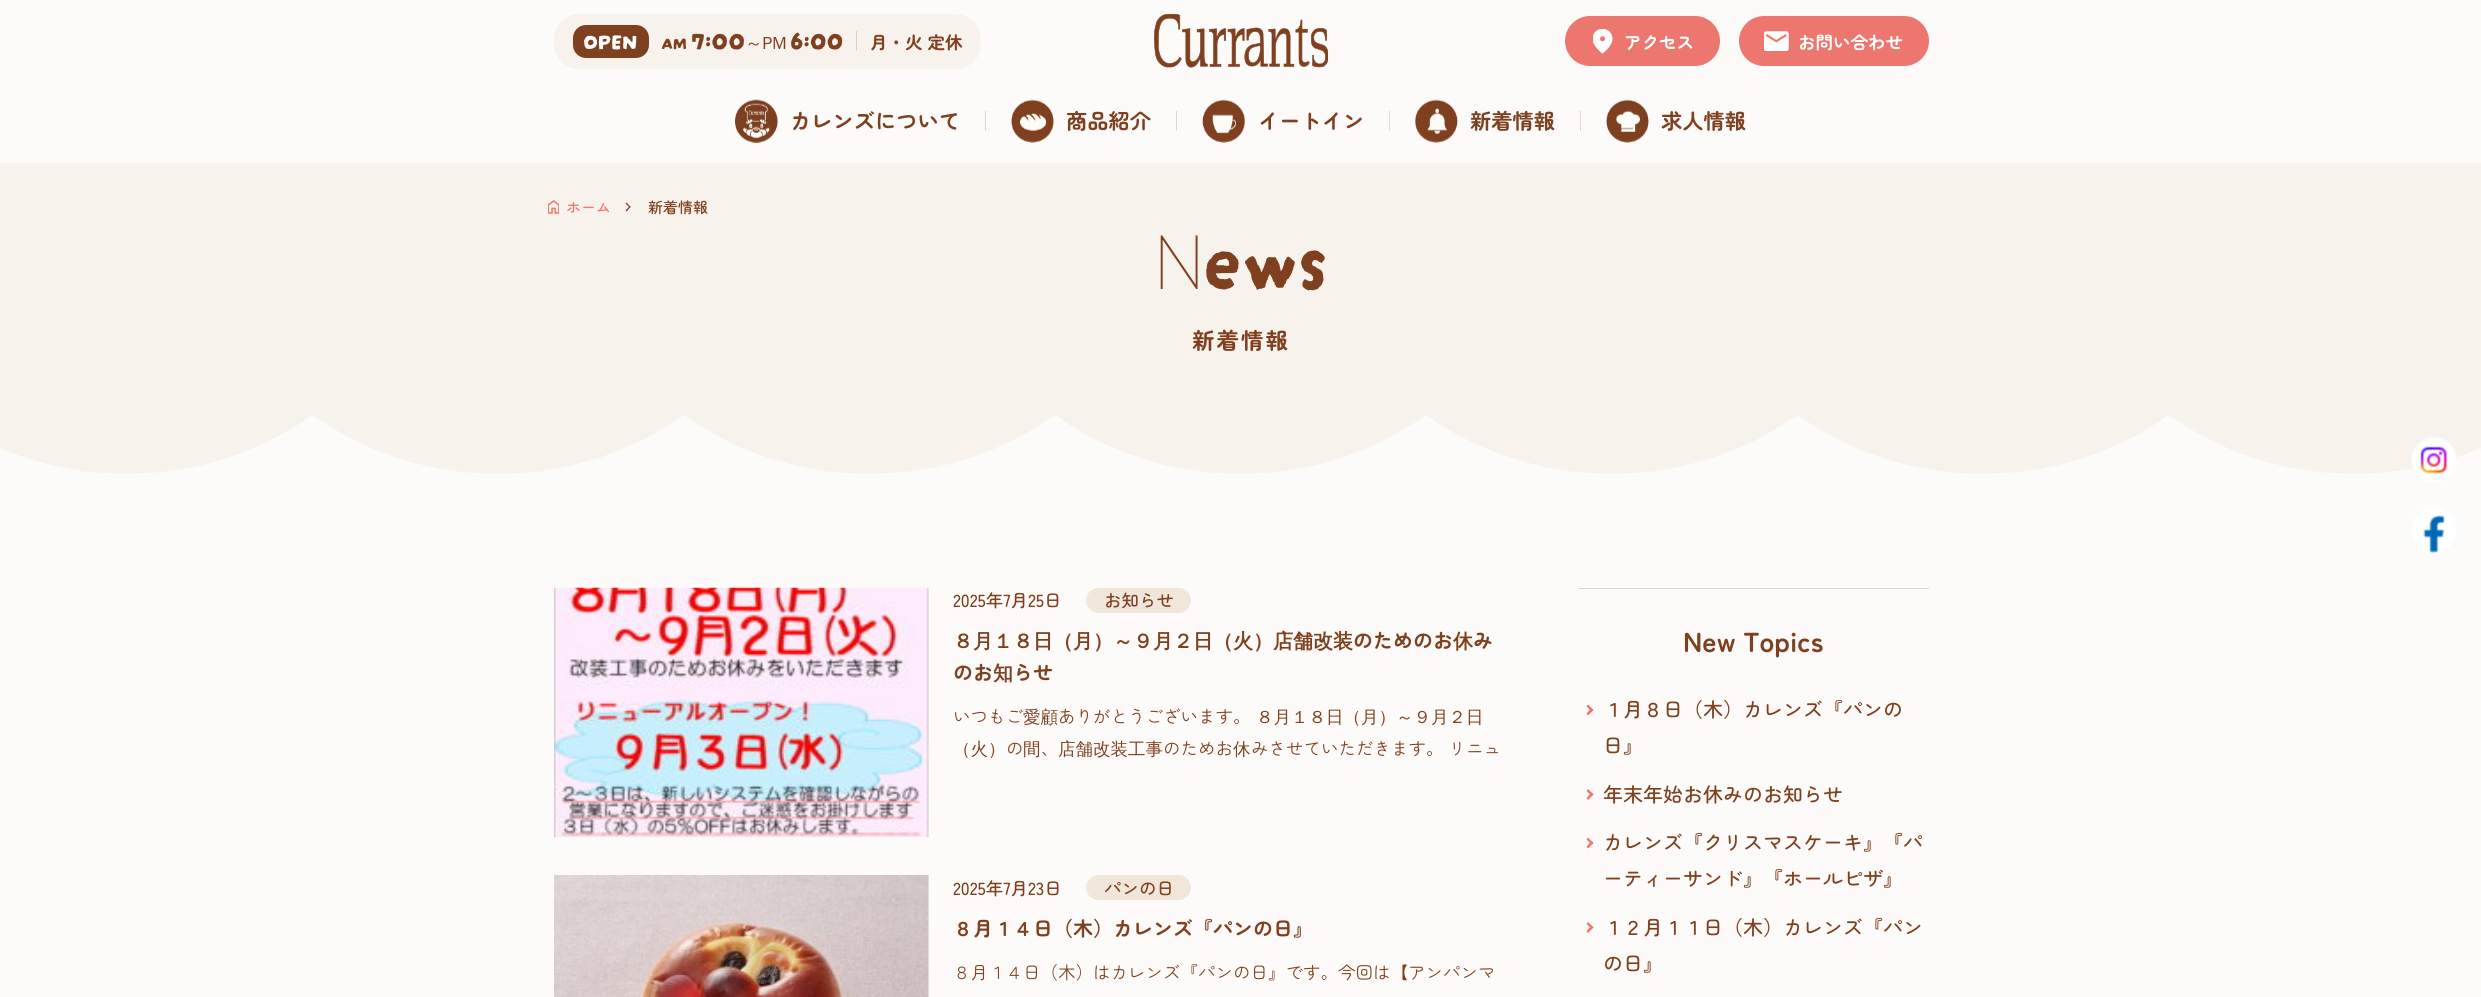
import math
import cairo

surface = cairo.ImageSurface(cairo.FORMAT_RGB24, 2481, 997)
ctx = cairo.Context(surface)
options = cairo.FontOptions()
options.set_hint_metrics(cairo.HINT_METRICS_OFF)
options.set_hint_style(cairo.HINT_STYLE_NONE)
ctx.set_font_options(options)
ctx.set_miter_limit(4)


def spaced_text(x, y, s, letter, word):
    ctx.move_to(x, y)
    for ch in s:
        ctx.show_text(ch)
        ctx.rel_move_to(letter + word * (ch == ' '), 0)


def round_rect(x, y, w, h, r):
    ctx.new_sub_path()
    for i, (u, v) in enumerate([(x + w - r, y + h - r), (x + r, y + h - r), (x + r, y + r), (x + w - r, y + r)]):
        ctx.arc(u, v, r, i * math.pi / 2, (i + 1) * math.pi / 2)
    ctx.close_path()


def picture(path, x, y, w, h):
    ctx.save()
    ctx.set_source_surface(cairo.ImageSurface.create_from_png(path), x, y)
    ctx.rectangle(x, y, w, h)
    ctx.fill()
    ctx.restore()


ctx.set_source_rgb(0.992, 0.984, 0.973)
ctx.paint()
ctx.set_source_rgb(0.969, 0.949, 0.922)
round_rect(554, 14, 427, 55, 25)
ctx.fill()
ctx.set_source_rgb(0.498, 0.251, 0.125)
round_rect(573, 25, 76, 33, 13)
ctx.fill()
ctx.select_font_face("Darumadrop One")
ctx.set_font_size(22.5)
ctx.set_source_rgb(1, 1, 1)
ctx.move_to(583, 49)
ctx.show_text("OPEN")
ctx.set_font_size(17.5)
ctx.set_source_rgb(0.498, 0.251, 0.125)
ctx.move_to(661, 49)
ctx.show_text("AM")
ctx.set_font_size(25)
ctx.move_to(691, 49)
ctx.show_text("7:00")
ctx.select_font_face("WenQuanYi Zen Hei Medium")
ctx.set_font_size(17.5)
ctx.move_to(745, 49)
ctx.show_text("～PM")
ctx.select_font_face("Darumadrop One")
ctx.set_font_size(25)
ctx.move_to(790, 49)
ctx.show_text("6:00")
ctx.set_source_rgb(0.875, 0.808, 0.761)
ctx.rectangle(856, 31, 1, 20)
ctx.fill()
ctx.select_font_face("Zen Maru Gothic", cairo.FONT_SLANT_NORMAL, cairo.FONT_WEIGHT_BOLD)
ctx.set_font_size(17.5)
ctx.set_source_rgb(0.498, 0.251, 0.125)
ctx.move_to(870, 49)
ctx.show_text("月・火 定休")
picture("img1.png", 1154, 14, 174, 54)
ctx.set_source_rgb(0.929, 0.467, 0.435)
round_rect(1565, 16, 155, 50, 25)
ctx.fill()
picture("img2.png", 1593, 29, 20, 25)
ctx.set_source_rgb(1, 1, 1)
ctx.move_to(1624, 49)
ctx.show_text("アクセス")
ctx.set_source_rgb(0.929, 0.467, 0.435)
round_rect(1739, 16, 190, 50, 25)
ctx.fill()
picture("img3.png", 1764, 31, 25, 20)
ctx.set_source_rgb(1, 1, 1)
ctx.move_to(1798, 49)
ctx.show_text("お問い合わせ")
picture("img4.png", 735, 99, 43, 44)
ctx.set_font_size(21.25)
ctx.set_source_rgb(0.498, 0.251, 0.125)
ctx.move_to(790, 129)
ctx.show_text("カレンズについて")
ctx.set_source_rgb(0.894, 0.839, 0.804)
ctx.rectangle(985, 111, 1, 20)
ctx.fill()
picture("img5.png", 1011, 99, 43, 44)
ctx.set_source_rgb(0.498, 0.251, 0.125)
ctx.move_to(1066, 129)
ctx.show_text("商品紹介")
ctx.set_source_rgb(0.894, 0.839, 0.804)
ctx.rectangle(1176, 111, 1, 20)
ctx.fill()
picture("img6.png", 1202, 99, 43, 44)
ctx.set_source_rgb(0.498, 0.251, 0.125)
ctx.move_to(1258, 129)
ctx.show_text("イートイン")
ctx.set_source_rgb(0.894, 0.839, 0.804)
ctx.rectangle(1389, 111, 1, 20)
ctx.fill()
picture("img7.png", 1415, 99, 43, 44)
ctx.set_source_rgb(0.498, 0.251, 0.125)
ctx.move_to(1470, 129)
ctx.show_text("新着情報")
ctx.set_source_rgb(0.894, 0.839, 0.804)
ctx.rectangle(1580, 111, 1, 20)
ctx.fill()
picture("img8.png", 1606, 99, 43, 44)
ctx.set_source_rgb(0.498, 0.251, 0.125)
ctx.move_to(1661, 129)
ctx.show_text("求人情報")
picture("img12.png", 0, 413, 2481, 61)
picture("img9.png", 2411, 437, 46, 45)
picture("img10.png", 2411, 508, 45, 45)
ctx.set_source_rgb(0.969, 0.949, 0.922)
ctx.rectangle(0, 163, 2481, 250)
ctx.fill()
picture("img11.png", 548, 200, 11, 14)
ctx.select_font_face("Zen Maru Gothic Medium")
ctx.set_font_size(15)
ctx.set_source_rgb(0.929, 0.467, 0.435)
ctx.move_to(566, 213)
ctx.show_text("ホーム")
ctx.set_source_rgb(0.498, 0.251, 0.125)
ctx.new_path()
ctx.move_to(625.5, 203.5)
ctx.line_to(626.5, 202.5)
ctx.line_to(630.5, 207)
ctx.line_to(630, 208)
ctx.close_path()
ctx.fill()
ctx.new_path()
ctx.move_to(625.5, 210.5)
ctx.line_to(630, 206)
ctx.line_to(630.5, 207)
ctx.line_to(626.5, 211.5)
ctx.close_path()
ctx.fill()
ctx.move_to(648, 213)
ctx.show_text("新着情報")
ctx.select_font_face("Noto Sans Thin")
ctx.set_font_size(75)
ctx.move_to(1153, 289)
ctx.show_text("N")
ctx.select_font_face("Darumadrop One")
ctx.move_to(1203, 289)
ctx.show_text("ews")
ctx.select_font_face("Zen Maru Gothic", cairo.FONT_SLANT_NORMAL, cairo.FONT_WEIGHT_BOLD)
ctx.set_font_size(22.5)
spaced_text(1192, 349, "新着情報", 2, 0)
picture("img13.png", 553, 587, 376, 251)
ctx.select_font_face("Zen Maru Gothic Medium")
ctx.set_font_size(17.5)
ctx.move_to(953, 607)
ctx.show_text("2025年7月25日")
ctx.set_source_rgb(0.941, 0.902, 0.851)
round_rect(1086, 588, 105, 25, 12.5)
ctx.fill()
ctx.set_source_rgb(0.498, 0.251, 0.125)
ctx.move_to(1104, 607)
ctx.show_text("お知らせ")
ctx.select_font_face("WenQuanYi Zen Hei", cairo.FONT_SLANT_NORMAL, cairo.FONT_WEIGHT_BOLD)
ctx.set_font_size(20)
ctx.move_to(953, 648)
ctx.show_text("８月１８日（月）～９月２日（火）店舗改装")
ctx.select_font_face("Zen Maru Gothic", cairo.FONT_SLANT_NORMAL, cairo.FONT_WEIGHT_BOLD)
ctx.move_to(1353, 648)
ctx.show_text("のためのお")
ctx.select_font_face("WenQuanYi Zen Hei", cairo.FONT_SLANT_NORMAL, cairo.FONT_WEIGHT_BOLD)
ctx.move_to(1453, 648)
ctx.show_text("休")
ctx.select_font_face("Zen Maru Gothic", cairo.FONT_SLANT_NORMAL, cairo.FONT_WEIGHT_BOLD)
ctx.move_to(1473, 648)
ctx.show_text("み")
ctx.move_to(953, 680)
ctx.show_text("のお")
ctx.select_font_face("WenQuanYi Zen Hei", cairo.FONT_SLANT_NORMAL, cairo.FONT_WEIGHT_BOLD)
ctx.move_to(993, 680)
ctx.show_text("知")
ctx.select_font_face("Zen Maru Gothic", cairo.FONT_SLANT_NORMAL, cairo.FONT_WEIGHT_BOLD)
ctx.move_to(1013, 680)
ctx.show_text("らせ")
ctx.select_font_face("Zen Maru Gothic")
ctx.set_font_size(17.5)
ctx.move_to(953, 723)
ctx.show_text("いつもご")
ctx.select_font_face("WenQuanYi Zen Hei Medium")
ctx.move_to(1023, 723)
ctx.show_text("愛顧")
ctx.select_font_face("Zen Maru Gothic")
ctx.move_to(1058, 723)
ctx.show_text("ありがとうございます。")
ctx.select_font_face("WenQuanYi Zen Hei Medium")
ctx.move_to(1256, 723)
ctx.show_text("８月１８日（月）～９月２日")
ctx.move_to(953, 755)
ctx.show_text("（火）")
ctx.select_font_face("Zen Maru Gothic")
ctx.move_to(1006, 755)
ctx.show_text("の")
ctx.select_font_face("WenQuanYi Zen Hei Medium")
ctx.move_to(1023, 755)
ctx.show_text("間")
ctx.select_font_face("Zen Maru Gothic")
ctx.move_to(1041, 755)
ctx.show_text("、")
ctx.select_font_face("WenQuanYi Zen Hei Medium")
ctx.move_to(1058, 755)
ctx.show_text("店舗改装工事")
ctx.select_font_face("Zen Maru Gothic")
ctx.move_to(1163, 755)
ctx.show_text("のためお")
ctx.select_font_face("WenQuanYi Zen Hei Medium")
ctx.move_to(1233, 755)
ctx.show_text("休")
ctx.select_font_face("Zen Maru Gothic")
ctx.move_to(1251, 755)
ctx.show_text("みさせていただきます。 リニュ")
picture("img14.png", 554, 875, 375, 122)
ctx.select_font_face("Zen Maru Gothic Medium")
ctx.move_to(953, 895)
ctx.show_text("2025年7月23日")
ctx.set_source_rgb(0.941, 0.902, 0.851)
round_rect(1086, 875, 105, 25, 12.5)
ctx.fill()
ctx.set_source_rgb(0.498, 0.251, 0.125)
ctx.move_to(1104, 895)
ctx.show_text("パンの日")
ctx.select_font_face("Zen Maru Gothic", cairo.FONT_SLANT_NORMAL, cairo.FONT_WEIGHT_BOLD)
ctx.set_font_size(20)
ctx.move_to(953, 936)
ctx.show_text("８月１４日（木）カレンズ『パンの日』")
ctx.select_font_face("Zen Maru Gothic")
ctx.set_font_size(17.5)
ctx.move_to(953, 979)
ctx.show_text("８月１４日（木）はカレンズ『パンの日』です。今回は【アンパンマ")
ctx.set_source_rgb(0.894, 0.839, 0.804)
ctx.rectangle(1579, 588, 350, 1)
ctx.fill()
ctx.select_font_face("Zen Maru Gothic", cairo.FONT_SLANT_NORMAL, cairo.FONT_WEIGHT_BOLD)
ctx.set_font_size(27.5)
ctx.set_source_rgb(0.498, 0.251, 0.125)
ctx.move_to(1683, 652)
ctx.show_text("New Topics")
ctx.set_source_rgb(0.929, 0.467, 0.435)
ctx.new_path()
ctx.move_to(1586.5, 706.5)
ctx.line_to(1588, 704.5)
ctx.line_to(1593.5, 710)
ctx.line_to(1591.5, 711.5)
ctx.close_path()
ctx.fill()
ctx.new_path()
ctx.move_to(1586.5, 713.5)
ctx.line_to(1591.5, 708)
ctx.line_to(1593.5, 710)
ctx.line_to(1588, 715.5)
ctx.close_path()
ctx.fill()
ctx.select_font_face("Zen Maru Gothic Medium")
ctx.set_font_size(20)
ctx.set_source_rgb(0.498, 0.251, 0.125)
ctx.move_to(1603, 717)
ctx.show_text("１月８日（木）カレンズ『パンの")
ctx.move_to(1603, 753)
ctx.show_text("日』")
ctx.set_source_rgb(0.929, 0.467, 0.435)
ctx.new_path()
ctx.move_to(1586.5, 791)
ctx.line_to(1588, 789)
ctx.line_to(1593.5, 794.5)
ctx.line_to(1591.5, 796)
ctx.close_path()
ctx.fill()
ctx.new_path()
ctx.move_to(1586.5, 798)
ctx.line_to(1591.5, 792.5)
ctx.line_to(1593.5, 794.5)
ctx.line_to(1588, 800)
ctx.close_path()
ctx.fill()
ctx.set_source_rgb(0.498, 0.251, 0.125)
ctx.move_to(1603, 802)
ctx.show_text("年末年始お休みのお知らせ")
ctx.set_source_rgb(0.929, 0.467, 0.435)
ctx.new_path()
ctx.move_to(1586.5, 839.5)
ctx.line_to(1588, 837.5)
ctx.line_to(1593.5, 843)
ctx.line_to(1591.5, 844.5)
ctx.close_path()
ctx.fill()
ctx.new_path()
ctx.move_to(1586.5, 846.5)
ctx.line_to(1591.5, 841)
ctx.line_to(1593.5, 843)
ctx.line_to(1588, 848.5)
ctx.close_path()
ctx.fill()
ctx.set_source_rgb(0.498, 0.251, 0.125)
ctx.move_to(1603, 850)
ctx.show_text("カレンズ『クリスマスケーキ』『パ")
ctx.move_to(1603, 886)
ctx.show_text("ーティーサンド』『ホールピザ』")
ctx.set_source_rgb(0.929, 0.467, 0.435)
ctx.new_path()
ctx.move_to(1586.5, 924)
ctx.line_to(1588, 922)
ctx.line_to(1593.5, 927.5)
ctx.line_to(1591.5, 929)
ctx.close_path()
ctx.fill()
ctx.new_path()
ctx.move_to(1586.5, 931)
ctx.line_to(1591.5, 925.5)
ctx.line_to(1593.5, 927.5)
ctx.line_to(1588, 933)
ctx.close_path()
ctx.fill()
ctx.set_source_rgb(0.498, 0.251, 0.125)
ctx.move_to(1603, 935)
ctx.show_text("１２月１１日（木）カレンズ『パン")
ctx.move_to(1603, 971)
ctx.show_text("の日』")
surface.write_to_png("page.png")
